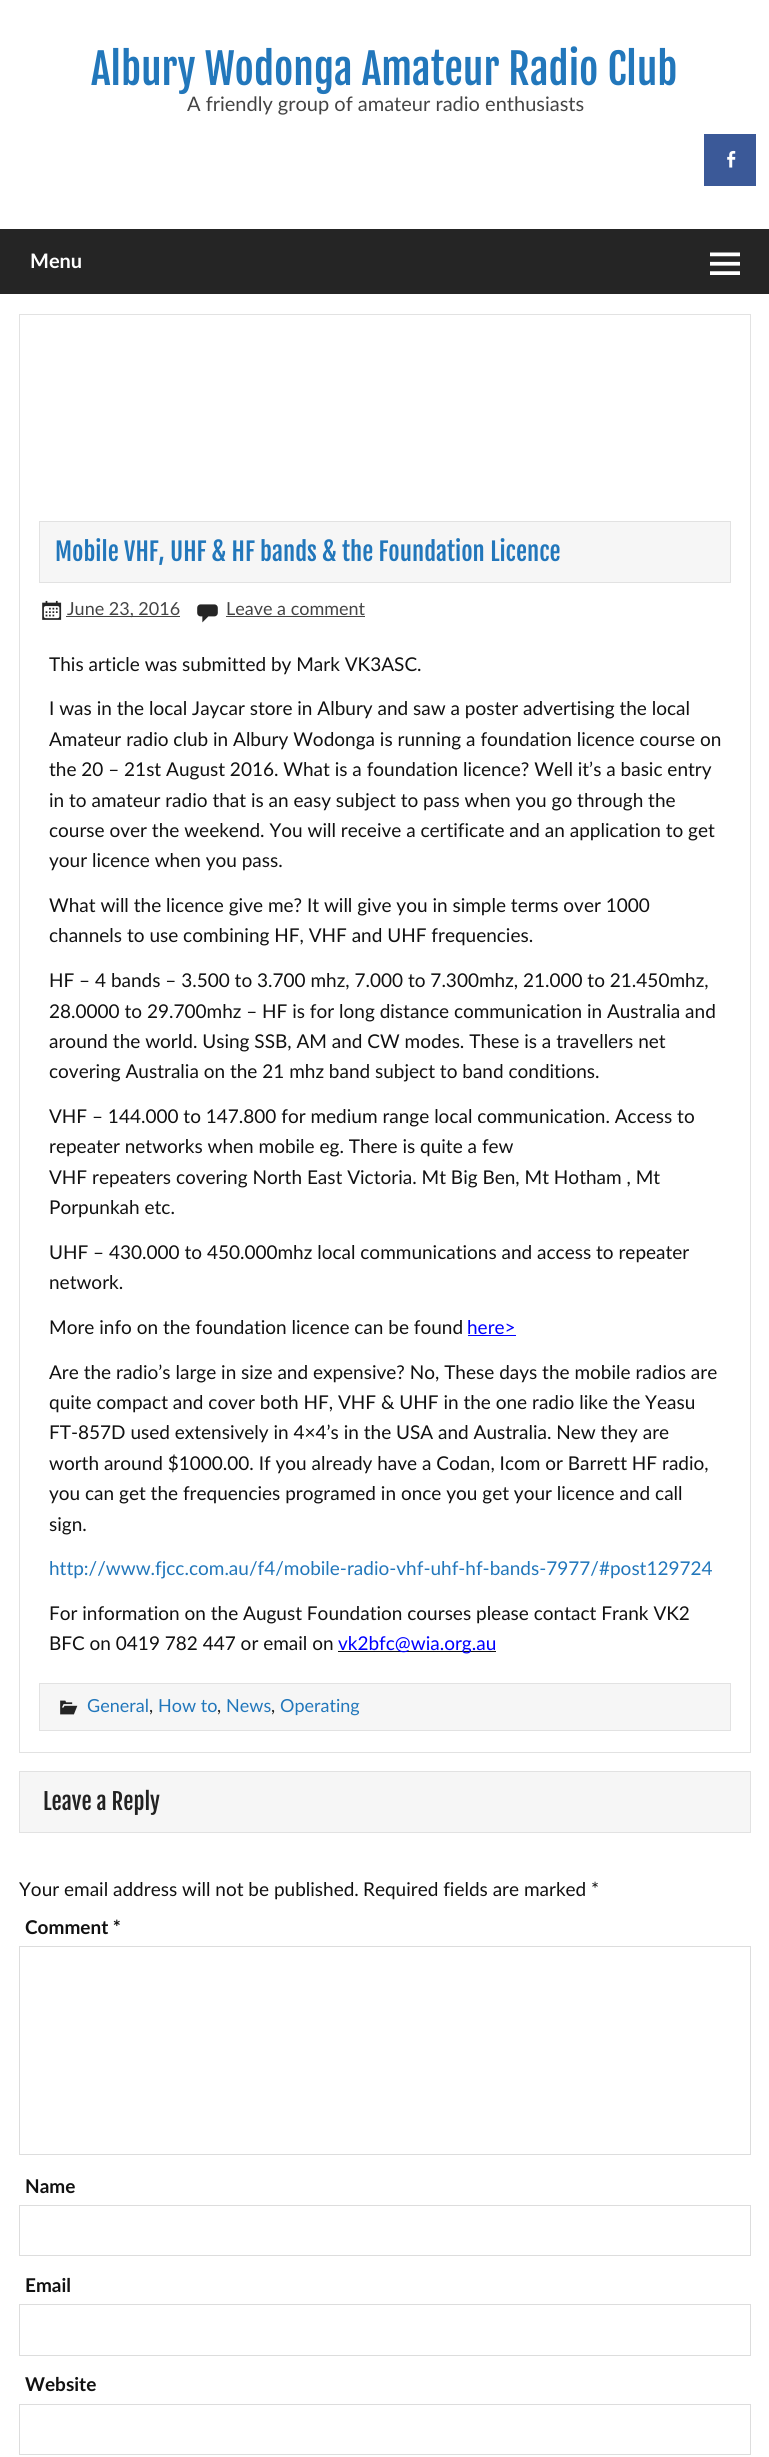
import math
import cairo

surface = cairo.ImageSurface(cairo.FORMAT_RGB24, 769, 2457)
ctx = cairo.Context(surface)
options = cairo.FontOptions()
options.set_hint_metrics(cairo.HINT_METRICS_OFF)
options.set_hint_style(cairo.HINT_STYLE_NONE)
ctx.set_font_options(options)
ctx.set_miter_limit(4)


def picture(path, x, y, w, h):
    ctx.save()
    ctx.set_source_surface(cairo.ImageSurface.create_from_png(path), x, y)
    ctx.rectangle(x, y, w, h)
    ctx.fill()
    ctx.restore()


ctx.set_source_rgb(1, 1, 1)
ctx.paint()
ctx.select_font_face("Fjalla One")
ctx.set_font_size(41.75)
ctx.set_source_rgb(0.133, 0.467, 0.733)
ctx.move_to(91, 85)
ctx.show_text("Albury Wodonga Amateur Radio Club")
ctx.select_font_face("Lato")
ctx.set_font_size(20)
ctx.set_source_rgb(0.267, 0.267, 0.267)
ctx.move_to(187, 111)
ctx.show_text("A friendly group of amateur radio enthusiasts")
ctx.set_source_rgb(0.231, 0.349, 0.596)
ctx.rectangle(704, 134, 52, 52)
ctx.fill()
picture("img1.png", 727, 150, 9, 18)
ctx.set_source_rgb(0.145, 0.145, 0.145)
ctx.rectangle(0, 229, 769, 65)
ctx.fill()
ctx.select_font_face("Lato", cairo.FONT_SLANT_NORMAL, cairo.FONT_WEIGHT_BOLD)
ctx.set_source_rgb(1, 1, 1)
ctx.move_to(30, 268)
ctx.show_text("Menu")
picture("img2.png", 710, 252, 30, 23)
ctx.rectangle(19.5, 314.5, 731, 1438)
ctx.set_source_rgb(0.886, 0.886, 0.886)
ctx.set_line_width(1)
ctx.stroke()
ctx.set_source_rgb(0.961, 0.961, 0.961)
ctx.rectangle(39.5, 521.5, 691, 61)
ctx.fill_preserve()
ctx.set_source_rgb(0.886, 0.886, 0.886)
ctx.stroke()
ctx.select_font_face("Fjalla One")
ctx.set_font_size(24.7)
ctx.set_source_rgb(0.133, 0.467, 0.733)
ctx.move_to(55, 561)
ctx.show_text("Mobile VHF, UHF & HF bands & the Foundation Licence")
picture("img3.png", 42, 600, 20, 20)
ctx.set_source_rgb(0.267, 0.267, 0.267)
ctx.rectangle(66, 616, 114, 1)
ctx.fill()
ctx.select_font_face("Lato")
ctx.set_font_size(18)
ctx.move_to(67, 615)
ctx.show_text("June 23, 2016")
picture("img4.png", 197, 604, 21, 19)
ctx.move_to(226, 615)
ctx.show_text("Leave a comment")
ctx.rectangle(226, 616, 139, 1)
ctx.fill()
ctx.set_font_size(19)
ctx.set_source_rgb(0.067, 0.067, 0.067)
ctx.move_to(49, 671)
ctx.show_text("This article was submitted by Mark VK3ASC.")
ctx.move_to(49, 715)
ctx.show_text("I was in the local Jaycar store in Albury and saw a poster advertising the local")
ctx.move_to(49, 746)
ctx.show_text("Amateur radio club in Albury Wodonga is running a foundation licence course on")
ctx.move_to(49, 776)
ctx.show_text("the 20 – 21st August 2016. What is a foundation licence? Well it’s a basic entry")
ctx.move_to(49, 807)
ctx.show_text("in to amateur radio that is an easy subject to pass when you go through the")
ctx.move_to(49, 837)
ctx.show_text("course over the weekend. You will receive a certificate and an application to get")
ctx.move_to(49, 867)
ctx.show_text("your licence when you pass.")
ctx.move_to(49, 912)
ctx.show_text("What will the licence give me? It will give you in simple terms over 1000")
ctx.move_to(49, 942)
ctx.show_text("channels to use combining HF, VHF and UHF frequencies.")
ctx.move_to(49, 987)
ctx.show_text("HF – 4 bands – 3.500 to 3.700 mhz, 7.000 to 7.300mhz, 21.000 to 21.450mhz,")
ctx.move_to(49, 1018)
ctx.show_text("28.0000 to 29.700mhz – HF is for long distance communication in Australia and")
ctx.move_to(49, 1048)
ctx.show_text("around the world. Using SSB, AM and CW modes. These is a travellers net")
ctx.move_to(49, 1078)
ctx.show_text("covering Australia on the 21 mhz band subject to band conditions.")
ctx.move_to(49, 1123)
ctx.show_text("VHF – 144.000 to 147.800 for medium range local communication. Access to")
ctx.move_to(49, 1153)
ctx.show_text("repeater networks when mobile eg. There is quite a few")
ctx.move_to(49, 1184)
ctx.show_text("VHF repeaters covering North East Victoria. Mt Big Ben, Mt Hotham , Mt")
ctx.move_to(49, 1214)
ctx.show_text("Porpunkah etc.")
ctx.move_to(49, 1259)
ctx.show_text("UHF – 430.000 to 450.000mhz local communications and access to repeater")
ctx.move_to(49, 1289)
ctx.show_text("network.")
ctx.move_to(49, 1334)
ctx.show_text("More info on the foundation licence can be found")
ctx.set_source_rgb(0, 0, 1)
ctx.move_to(467, 1334)
ctx.show_text("here>")
ctx.rectangle(468, 1335, 48, 1)
ctx.fill()
ctx.set_source_rgb(0.067, 0.067, 0.067)
ctx.move_to(49, 1379)
ctx.show_text("Are the radio’s large in size and expensive? No, These days the mobile radios are")
ctx.move_to(49, 1409)
ctx.show_text("quite compact and cover both HF, VHF & UHF in the one radio like the Yeasu")
ctx.move_to(49, 1439)
ctx.show_text("FT-857D used extensively in 4×4’s in the USA and Australia. New they are")
ctx.move_to(49, 1470)
ctx.show_text("worth around $1000.00. If you already have a Codan, Icom or Barrett HF radio,")
ctx.move_to(49, 1500)
ctx.show_text("you can get the frequencies programed in once you get your licence and call")
ctx.move_to(49, 1531)
ctx.show_text("sign.")
ctx.set_source_rgb(0.133, 0.467, 0.733)
ctx.move_to(49, 1575)
ctx.show_text("http://www.fjcc.com.au/f4/mobile-radio-vhf-uhf-hf-bands-7977/#post129724")
ctx.set_source_rgb(0.067, 0.067, 0.067)
ctx.move_to(49, 1620)
ctx.show_text("For information on the August Foundation courses please contact Frank VK2")
ctx.move_to(49, 1650)
ctx.show_text("BFC on 0419 782 447 or email on")
ctx.rectangle(338, 1651, 158, 1)
ctx.fill()
ctx.set_source_rgb(0, 0, 1)
ctx.move_to(338, 1650)
ctx.show_text("vk2bfc@wia.org.au")
ctx.set_source_rgb(0.961, 0.961, 0.961)
ctx.rectangle(39.5, 1683.5, 691, 47)
ctx.fill_preserve()
ctx.set_source_rgb(0.886, 0.886, 0.886)
ctx.stroke()
picture("img5.png", 60, 1700, 18, 15)
ctx.set_font_size(18)
ctx.set_source_rgb(0.133, 0.467, 0.733)
ctx.move_to(87, 1712)
ctx.show_text("General")
ctx.set_source_rgb(0.133, 0.133, 0.133)
ctx.move_to(149, 1712)
ctx.show_text(",")
ctx.set_source_rgb(0.133, 0.467, 0.733)
ctx.move_to(158, 1712)
ctx.show_text("How to")
ctx.set_source_rgb(0.133, 0.133, 0.133)
ctx.move_to(217, 1712)
ctx.show_text(",")
ctx.set_source_rgb(0.133, 0.467, 0.733)
ctx.move_to(226, 1712)
ctx.show_text("News")
ctx.set_source_rgb(0.133, 0.133, 0.133)
ctx.move_to(271, 1712)
ctx.show_text(",")
ctx.set_source_rgb(0.133, 0.467, 0.733)
ctx.move_to(280, 1712)
ctx.show_text("Operating")
ctx.set_source_rgb(0.961, 0.961, 0.961)
ctx.rectangle(19.5, 1771.5, 731, 61)
ctx.fill_preserve()
ctx.set_source_rgb(0.886, 0.886, 0.886)
ctx.stroke()
ctx.select_font_face("Fjalla One")
ctx.set_font_size(22.75)
ctx.set_source_rgb(0.133, 0.133, 0.133)
ctx.move_to(43, 1810)
ctx.show_text("Leave a Reply")
ctx.select_font_face("Lato")
ctx.set_font_size(19)
ctx.set_source_rgb(0.067, 0.067, 0.067)
ctx.move_to(19, 1896)
ctx.show_text("Your email address will not be published.")
ctx.move_to(363, 1896)
ctx.show_text("Required fields are marked *")
ctx.select_font_face("Lato", cairo.FONT_SLANT_NORMAL, cairo.FONT_WEIGHT_BOLD)
ctx.move_to(25, 1934)
ctx.show_text("Comment *")
ctx.rectangle(19.5, 1946.5, 731, 208)
ctx.set_source_rgb(0.867, 0.867, 0.867)
ctx.stroke()
ctx.set_source_rgb(0.067, 0.067, 0.067)
ctx.move_to(25, 2193)
ctx.show_text("Name")
ctx.rectangle(19.5, 2205.5, 731, 50)
ctx.set_source_rgb(0.867, 0.867, 0.867)
ctx.stroke()
ctx.set_source_rgb(0.067, 0.067, 0.067)
ctx.move_to(25, 2292)
ctx.show_text("Email")
ctx.rectangle(19.5, 2304.5, 731, 51)
ctx.set_source_rgb(0.867, 0.867, 0.867)
ctx.stroke()
ctx.set_source_rgb(0.067, 0.067, 0.067)
ctx.move_to(25, 2391)
ctx.show_text("Website")
ctx.rectangle(19.5, 2404.5, 731, 50)
ctx.set_source_rgb(0.867, 0.867, 0.867)
ctx.stroke()
surface.write_to_png("page.png")
